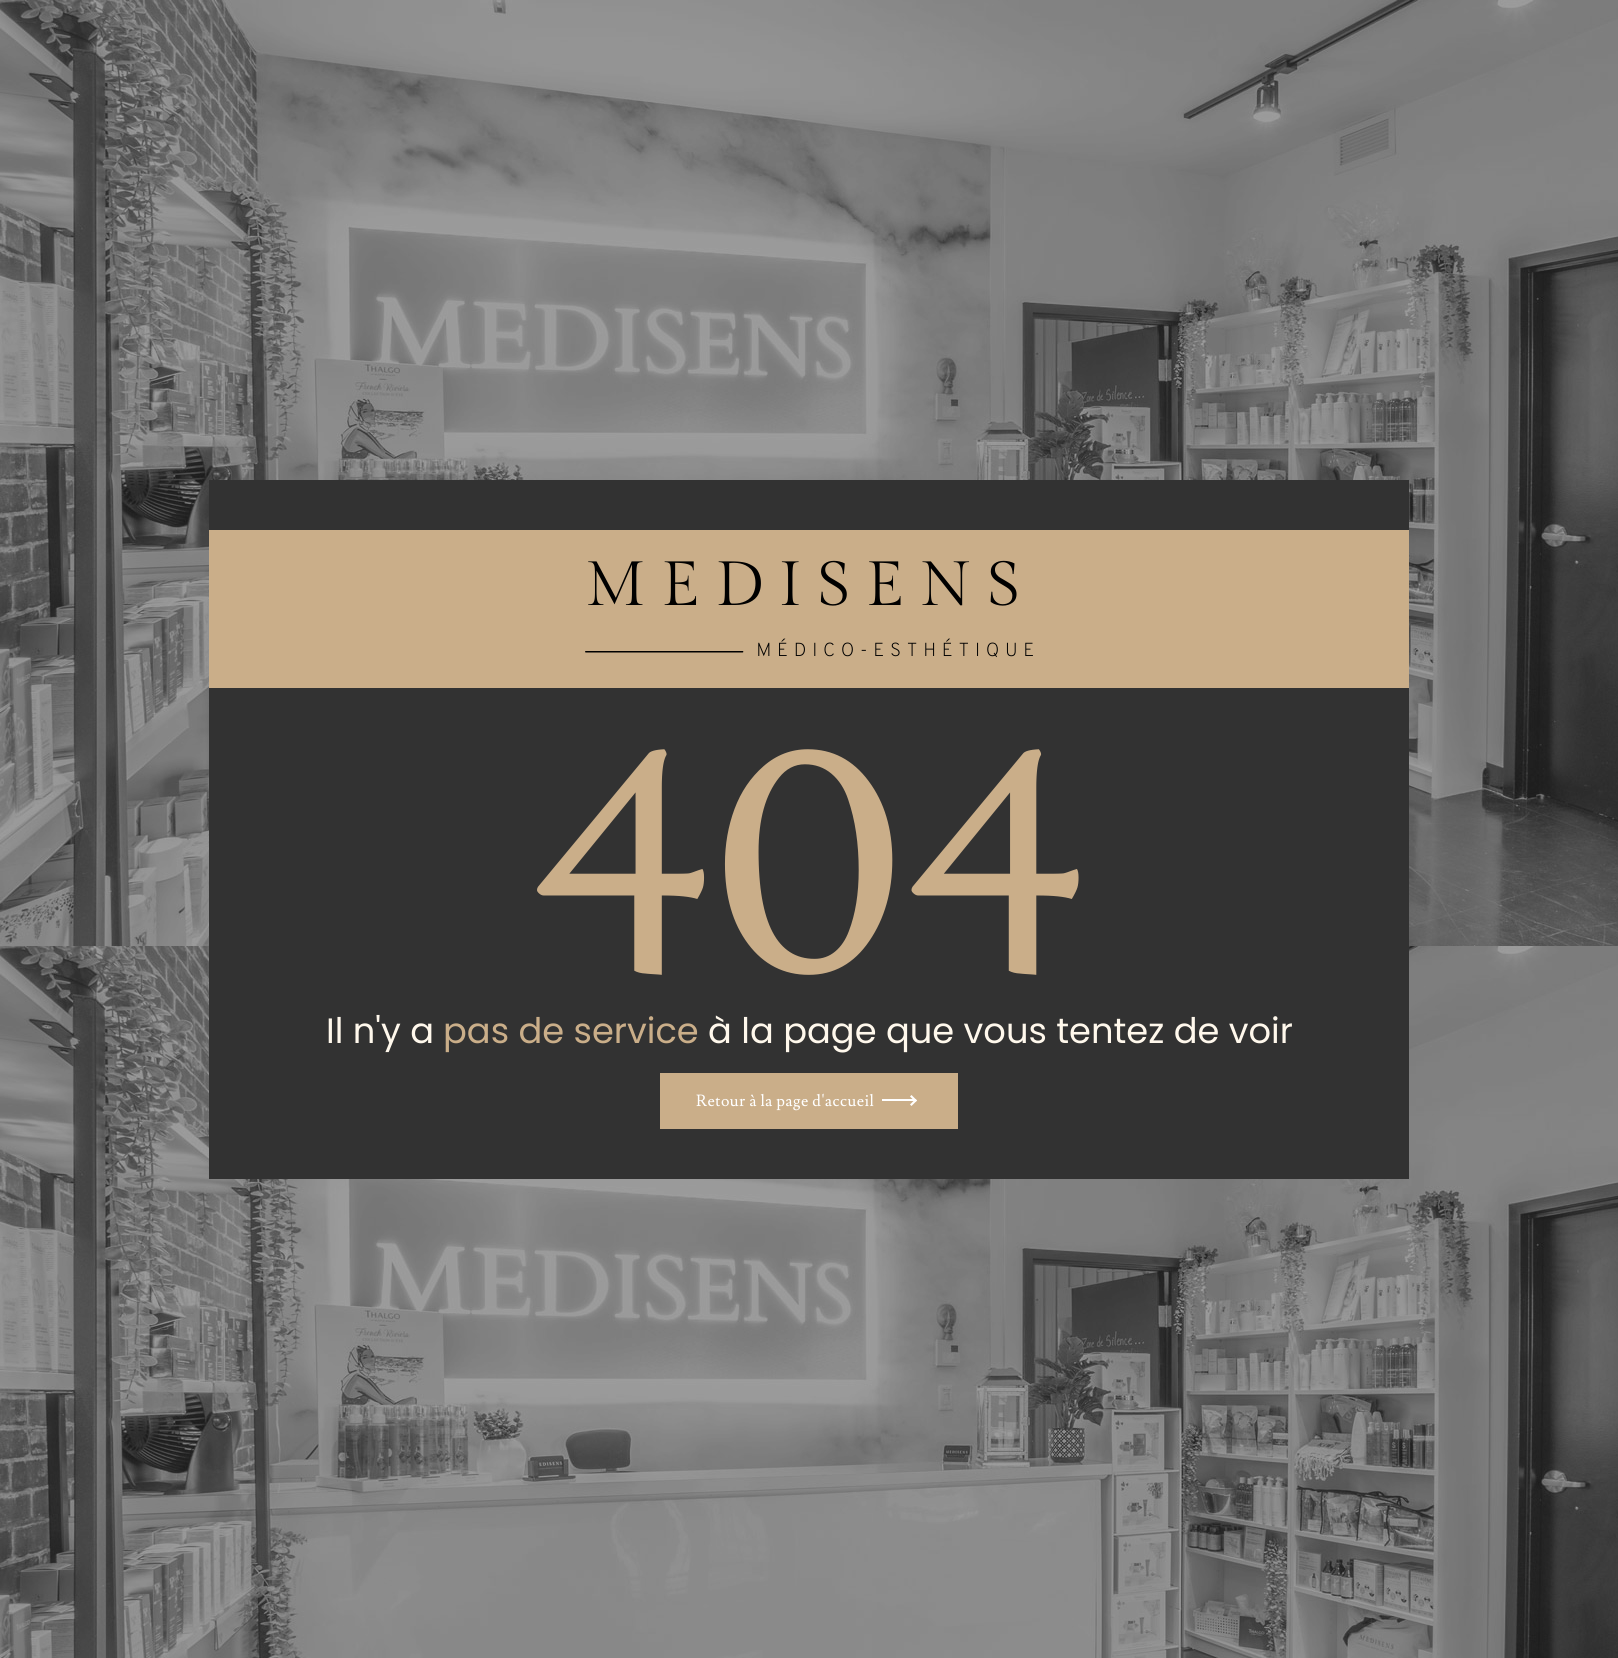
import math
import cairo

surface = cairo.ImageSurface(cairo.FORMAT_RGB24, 1618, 1658)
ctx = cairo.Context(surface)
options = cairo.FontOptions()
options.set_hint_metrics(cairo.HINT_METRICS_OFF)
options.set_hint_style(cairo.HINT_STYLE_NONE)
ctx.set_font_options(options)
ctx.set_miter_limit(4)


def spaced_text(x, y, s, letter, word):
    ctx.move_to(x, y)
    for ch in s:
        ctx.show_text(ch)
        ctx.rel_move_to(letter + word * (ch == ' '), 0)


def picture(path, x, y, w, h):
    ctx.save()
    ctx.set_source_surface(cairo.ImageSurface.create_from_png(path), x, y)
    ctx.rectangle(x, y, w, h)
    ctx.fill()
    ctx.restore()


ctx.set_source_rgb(1, 1, 1)
ctx.paint()
picture("img1.png", 0, 0, 1618, 1658)
ctx.set_source_rgb(0.196, 0.196, 0.196)
ctx.rectangle(209, 480, 1200, 699)
ctx.fill()
ctx.set_source_rgb(0.792, 0.682, 0.537)
ctx.rectangle(209, 530, 1200, 158)
ctx.fill()
picture("img2.png", 585, 560, 448, 98)
ctx.select_font_face("Lusitana")
ctx.set_font_size(320)
ctx.move_to(529, 971)
ctx.show_text("404")
ctx.select_font_face("Poppins")
ctx.set_font_size(35.25)
ctx.set_source_rgb(1, 0.969, 0.925)
ctx.move_to(326, 1043)
ctx.show_text("Il n'y a")
ctx.set_source_rgb(0.792, 0.682, 0.537)
ctx.move_to(443, 1043)
ctx.show_text("pas de service")
ctx.set_source_rgb(1, 0.969, 0.925)
ctx.move_to(708, 1043)
ctx.show_text("à la page que vous tentez de voir")
ctx.set_source_rgb(0.792, 0.682, 0.537)
ctx.rectangle(660, 1073, 298, 56)
ctx.fill()
ctx.select_font_face("Lusitana")
ctx.set_font_size(16)
ctx.set_source_rgb(1, 1, 1)
spaced_text(696, 1106, "Retour à la page d'accueil", 0.4, 0)
ctx.rectangle(882, 1099, 34, 2)
ctx.fill()
ctx.new_path()
ctx.move_to(910, 1096.5)
ctx.line_to(911.5, 1095)
ctx.line_to(917, 1100.5)
ctx.line_to(915.5, 1102)
ctx.close_path()
ctx.fill()
ctx.new_path()
ctx.move_to(910, 1104.5)
ctx.line_to(915.5, 1099)
ctx.line_to(917, 1100.5)
ctx.line_to(911.5, 1106)
ctx.close_path()
ctx.fill()
surface.write_to_png("page.png")
